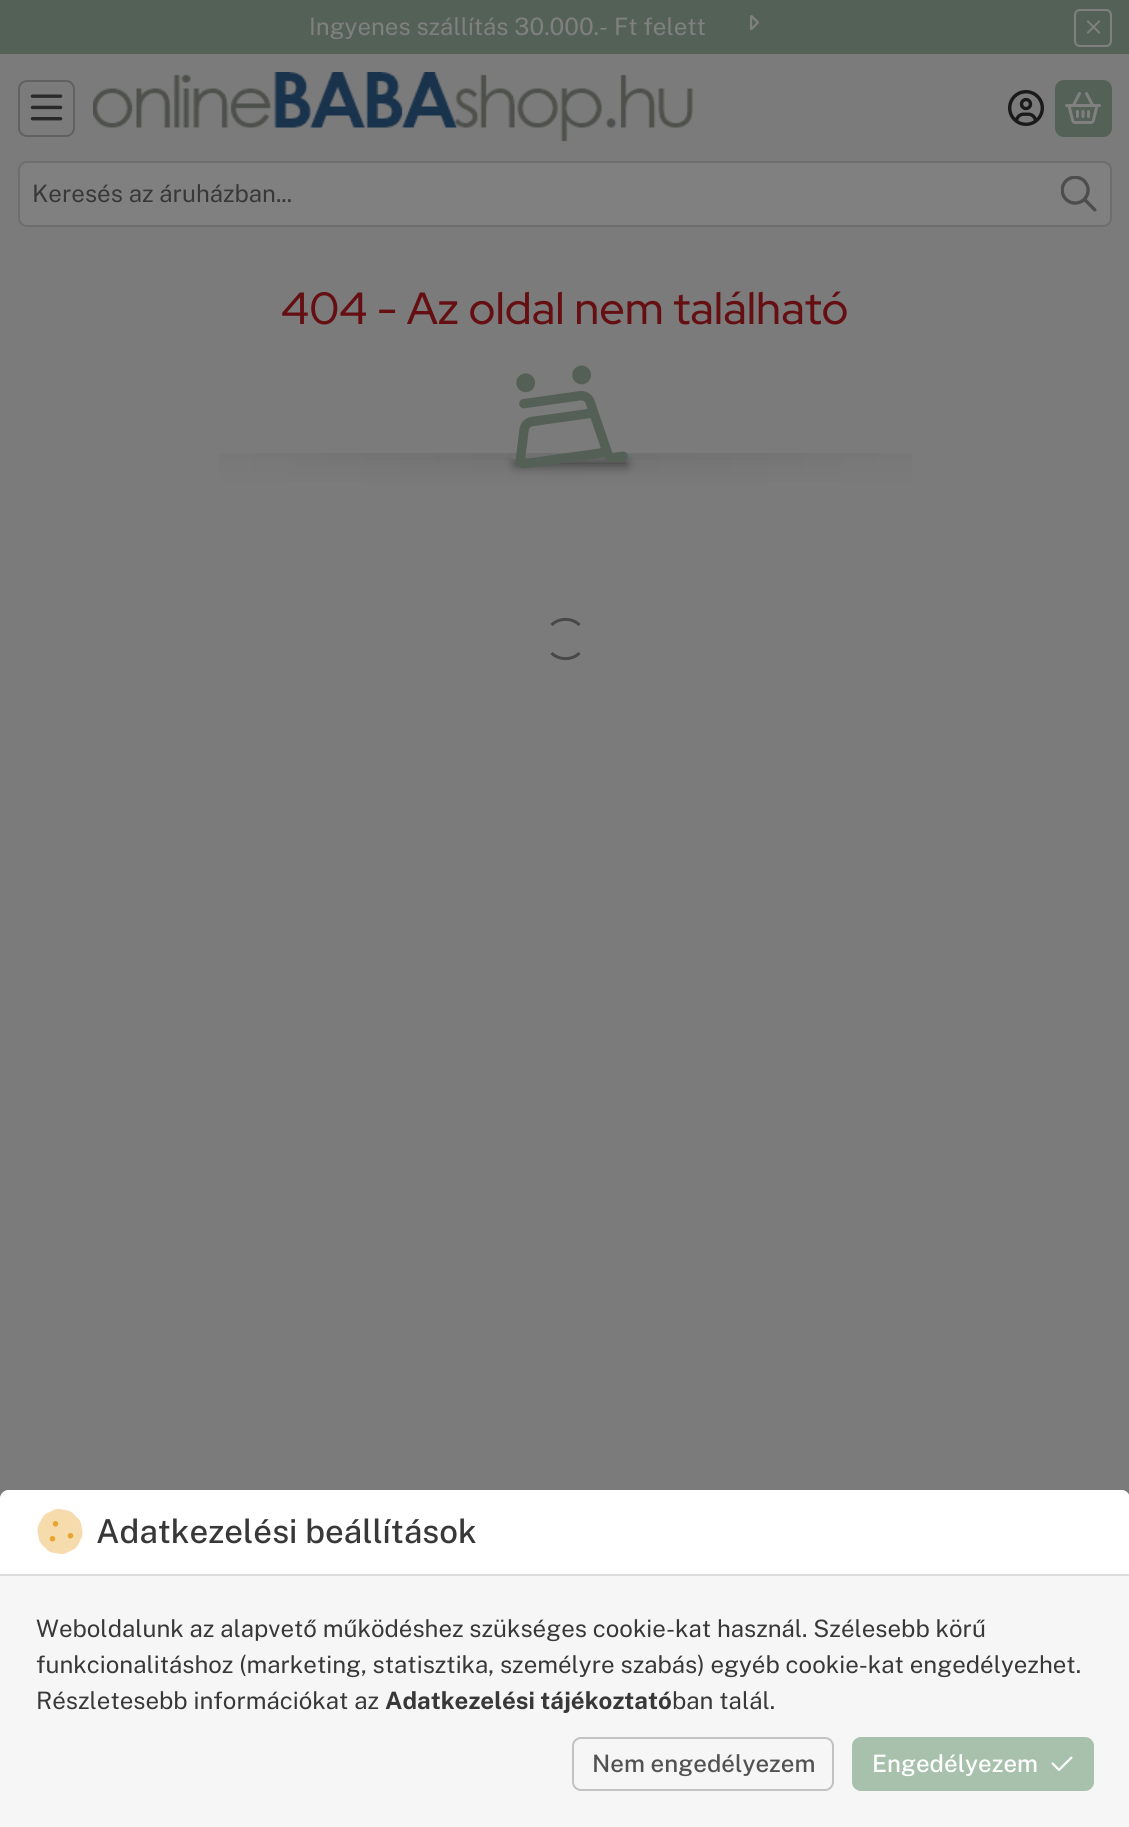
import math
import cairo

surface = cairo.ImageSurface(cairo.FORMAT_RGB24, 1129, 1827)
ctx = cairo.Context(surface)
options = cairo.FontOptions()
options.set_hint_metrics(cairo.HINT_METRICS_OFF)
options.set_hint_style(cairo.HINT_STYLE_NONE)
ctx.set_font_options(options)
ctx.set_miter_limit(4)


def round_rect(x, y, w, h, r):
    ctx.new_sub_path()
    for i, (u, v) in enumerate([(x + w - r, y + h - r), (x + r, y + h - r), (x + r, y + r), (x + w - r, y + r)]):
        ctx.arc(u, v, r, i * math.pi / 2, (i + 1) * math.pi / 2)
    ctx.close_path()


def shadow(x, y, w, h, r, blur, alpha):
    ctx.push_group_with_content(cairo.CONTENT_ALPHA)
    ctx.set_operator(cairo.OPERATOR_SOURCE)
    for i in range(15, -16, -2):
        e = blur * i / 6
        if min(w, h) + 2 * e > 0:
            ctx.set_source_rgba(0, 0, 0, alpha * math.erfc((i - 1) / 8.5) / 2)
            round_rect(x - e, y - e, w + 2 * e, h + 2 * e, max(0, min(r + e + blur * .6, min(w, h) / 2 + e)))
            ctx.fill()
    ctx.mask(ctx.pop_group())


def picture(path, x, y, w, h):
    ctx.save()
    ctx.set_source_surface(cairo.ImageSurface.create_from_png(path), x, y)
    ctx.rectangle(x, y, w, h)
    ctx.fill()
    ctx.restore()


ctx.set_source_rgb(0.482, 0.482, 0.482)
ctx.paint()
ctx.set_source_rgb(0.329, 0.38, 0.341)
ctx.rectangle(0, 0, 1129, 54)
ctx.fill()
ctx.select_font_face("Public Sans")
ctx.set_font_size(24)
ctx.set_source_rgb(0.502, 0.502, 0.502)
ctx.move_to(309, 35)
ctx.show_text("Ingyenes szállítás 30.000.- Ft felett")
picture("img1.png", 750, 15, 9, 15)
round_rect(1075, 10, 36, 36, 5)
ctx.stroke()
picture("img2.png", 1087, 20, 13, 14)
round_rect(19, 81, 55, 55, 8)
ctx.set_source_rgb(0.38, 0.38, 0.38)
ctx.stroke()
picture("img3.png", 30, 94, 33, 27)
picture("img4.png", 93, 72, 600, 70)
picture("img5.png", 1008, 90, 36, 36)
ctx.set_source_rgb(0.329, 0.38, 0.341)
round_rect(1056, 81, 55, 55, 8)
ctx.fill_preserve()
ctx.stroke()
picture("img6.png", 1065, 92, 36, 32)
ctx.set_source_rgb(0.502, 0.502, 0.502)
round_rect(19, 162, 1092, 64, 8)
ctx.fill_preserve()
ctx.set_source_rgb(0.431, 0.431, 0.431)
ctx.stroke()
ctx.set_source_rgb(0.22, 0.22, 0.22)
ctx.move_to(32, 202)
ctx.show_text("Keresés az áruházban...")
picture("img7.png", 1061, 176, 36, 36)
ctx.select_font_face("Red Hat Display Medium")
ctx.set_font_size(45)
ctx.set_source_rgb(0.396, 0.059, 0.075)
ctx.move_to(281, 324)
ctx.show_text("404 - Az oldal nem található")
gradient = cairo.LinearGradient(19, 470, 1112, 470)
gradient.add_color_stop_rgba(0.1, 0.482, 0.482, 0.482, 1)
gradient.add_color_stop_rgba(0.5, 0.435, 0.435, 0.435, 1)
gradient.add_color_stop_rgba(0.9, 0.482, 0.482, 0.482, 1)
ctx.set_source(gradient)
ctx.rectangle(219, 453, 693, 33)
ctx.fill()
gradient = cairo.LinearGradient(566, 486, 566, 453)
gradient.add_color_stop_rgba(0, 0.482, 0.482, 0.482, 1)
gradient.add_color_stop_rgba(1, 0.482, 0.482, 0.482, 0)
ctx.set_source(gradient)
ctx.rectangle(219, 460, 693, 26)
ctx.fill()
ctx.save()
ctx.set_fill_rule(cairo.FILL_RULE_EVEN_ODD)
ctx.new_path()
ctx.move_to(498, 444)
ctx.line_to(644, 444)
ctx.line_to(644, 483)
ctx.line_to(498, 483)
ctx.close_path()
ctx.move_to(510, 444)
ctx.line_to(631, 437.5)
ctx.line_to(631.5, 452.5)
ctx.line_to(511, 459)
ctx.close_path()
ctx.clip()
ctx.set_source_rgb(0.251, 0.251, 0.251)
shadow(516, 462, 110, 3, 0, 5.5, 1)
ctx.restore()
picture("img8.png", 515, 365, 113, 104)
ctx.new_path()
ctx.move_to(551.5, 625)
ctx.curve_to(559, 617.5, 572, 617.5, 579.5, 625)
ctx.move_to(579.5, 653)
ctx.curve_to(572, 660.5, 559, 660.5, 551.5, 653)
ctx.set_source_rgb(0.282, 0.282, 0.282)
ctx.set_line_width(3)
ctx.stroke()
ctx.set_source_rgb(0.961, 0.961, 0.961)
ctx.new_path()
ctx.move_to(9, 1490)
ctx.line_to(1121, 1490)
ctx.curve_to(1126, 1490, 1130, 1494, 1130, 1499)
ctx.line_to(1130, 1827)
ctx.line_to(0, 1827)
ctx.line_to(0, 1499)
ctx.curve_to(0, 1494, 4, 1490, 9, 1490)
ctx.close_path()
ctx.fill()
ctx.set_source_rgb(1, 1, 1)
ctx.new_path()
ctx.move_to(9, 1490)
ctx.line_to(1121, 1490)
ctx.curve_to(1126, 1490, 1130, 1494, 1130, 1499)
ctx.line_to(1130, 1575)
ctx.line_to(0, 1575)
ctx.line_to(0, 1499)
ctx.curve_to(0, 1494, 4, 1490, 9, 1490)
ctx.close_path()
ctx.fill()
ctx.set_source_rgb(0.859, 0.859, 0.859)
ctx.rectangle(0, 1574, 1129, 2)
ctx.fill()
picture("img9.png", 37, 1509, 46, 45)
ctx.select_font_face("Public Sans Medium")
ctx.set_font_size(33)
ctx.set_source_rgb(0.22, 0.22, 0.22)
ctx.move_to(96, 1543)
ctx.show_text("Adatkezelési beállítások")
ctx.select_font_face("Public Sans")
ctx.set_font_size(24)
ctx.move_to(36, 1637)
ctx.show_text("Weboldalunk az alapvető működéshez szükséges cookie-kat használ. Szélesebb körű")
ctx.move_to(36, 1673)
ctx.show_text("funkcionalitáshoz (marketing, statisztika, személyre szabás) egyéb cookie-kat engedélyezhet.")
ctx.move_to(36, 1709)
ctx.show_text("Részletesebb információkat az")
ctx.select_font_face("Public Sans", cairo.FONT_SLANT_NORMAL, cairo.FONT_WEIGHT_BOLD)
ctx.move_to(385, 1709)
ctx.show_text("Adatkezelési tájékoztató")
ctx.select_font_face("Public Sans")
ctx.move_to(672, 1709)
ctx.show_text("ban talál.")
round_rect(573, 1738, 260, 52, 8)
ctx.set_source_rgb(0.761, 0.761, 0.761)
ctx.set_line_width(2)
ctx.stroke()
ctx.select_font_face("Public Sans Medium")
ctx.set_source_rgb(0.322, 0.322, 0.322)
ctx.move_to(592, 1772)
ctx.show_text("Nem engedélyezem")
ctx.set_source_rgb(0.655, 0.757, 0.678)
round_rect(853, 1738, 240, 52, 8)
ctx.fill_preserve()
ctx.stroke()
ctx.set_source_rgb(1, 1, 1)
ctx.move_to(872, 1772)
ctx.show_text("Engedélyezem")
picture("img10.png", 1051, 1756, 22, 15)
surface.write_to_png("page.png")
